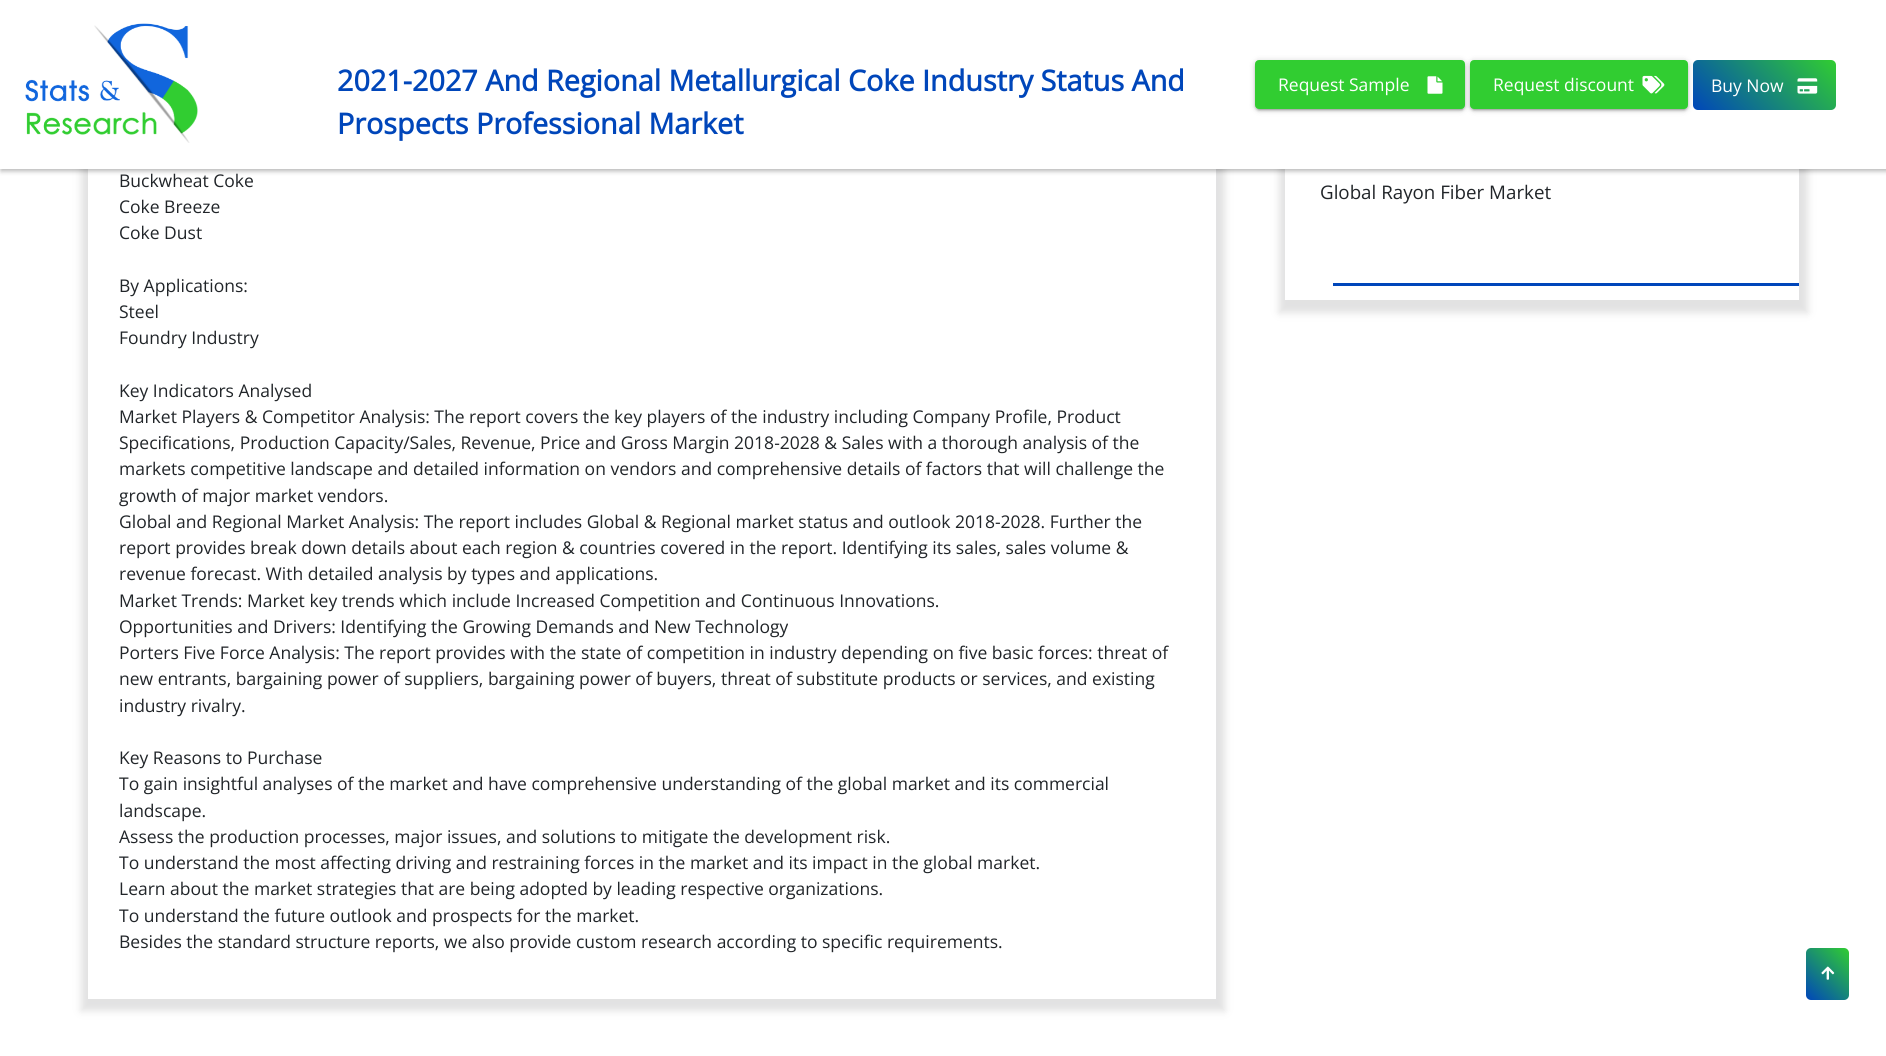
import math
import cairo

surface = cairo.ImageSurface(cairo.FORMAT_RGB24, 1886, 1056)
ctx = cairo.Context(surface)
options = cairo.FontOptions()
options.set_hint_metrics(cairo.HINT_METRICS_OFF)
options.set_hint_style(cairo.HINT_STYLE_NONE)
ctx.set_font_options(options)
ctx.set_miter_limit(4)


def round_rect(x, y, w, h, r):
    ctx.new_sub_path()
    for i, (u, v) in enumerate([(x + w - r, y + h - r), (x + r, y + h - r), (x + r, y + r), (x + w - r, y + r)]):
        ctx.arc(u, v, r, i * math.pi / 2, (i + 1) * math.pi / 2)
    ctx.close_path()


def shadow(x, y, w, h, r, blur, alpha):
    ctx.push_group_with_content(cairo.CONTENT_ALPHA)
    ctx.set_operator(cairo.OPERATOR_SOURCE)
    for i in range(15, -16, -2):
        e = blur * i / 6
        if min(w, h) + 2 * e > 0:
            ctx.set_source_rgba(0, 0, 0, alpha * math.erfc((i - 1) / 8.5) / 2)
            round_rect(x - e, y - e, w + 2 * e, h + 2 * e, max(0, min(r + e + blur * .6, min(w, h) / 2 + e)))
            ctx.fill()
    ctx.mask(ctx.pop_group())


def picture(path, x, y, w, h):
    ctx.save()
    ctx.set_source_surface(cairo.ImageSurface.create_from_png(path), x, y)
    ctx.rectangle(x, y, w, h)
    ctx.fill()
    ctx.restore()


ctx.set_source_rgb(1, 1, 1)
ctx.paint()
ctx.set_source_rgb(0.392, 0.392, 0.396)
shadow(81, -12, 1144, 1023, 0, 4, 0.19)
ctx.set_source_rgb(1, 1, 1)
ctx.rectangle(88, 169, 1128, 830)
ctx.fill()
ctx.set_source_rgb(0.392, 0.392, 0.396)
shadow(1279, -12, 529, 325, 0, 4, 0.19)
ctx.set_source_rgb(1, 1, 1)
ctx.rectangle(1285, 169, 514, 131)
ctx.fill()
ctx.set_source_rgb(0, 0, 0)
shadow(1, 3, 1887, 168, 0, 2.5, 0.3)
ctx.set_source_rgb(1, 1, 1)
ctx.rectangle(0, 0, 1886, 169)
ctx.fill()
picture("img1.png", 25, 23, 173, 120)
ctx.select_font_face("Open Sans", cairo.FONT_SLANT_NORMAL, cairo.FONT_WEIGHT_BOLD)
ctx.set_font_size(28.75)
ctx.set_source_rgb(0, 0.275, 0.729)
ctx.move_to(337, 91)
ctx.show_text("2021-2027 And Regional Metallurgical Coke Industry Status And")
ctx.move_to(337, 134)
ctx.show_text("Prospects Professional Market")
ctx.set_source_rgb(0, 0, 0)
shadow(1255, 63, 210, 48, 4, 1, 0.14)
shadow(1258, 66, 205, 44, 1, 0.5, 0.12)
shadow(1255, 61, 210, 49, 4, 3, 0.2)
ctx.set_source_rgb(0.192, 0.804, 0.192)
round_rect(1256.5, 61.5, 207, 46, 2.5)
ctx.fill_preserve()
ctx.set_line_width(3)
ctx.stroke()
ctx.select_font_face("Open Sans")
ctx.set_font_size(17.5)
ctx.set_source_rgb(1, 1, 1)
ctx.move_to(1278, 91)
ctx.show_text("Request Sample")
picture("img2.png", 1427, 76, 16, 18)
ctx.set_source_rgb(0, 0, 0)
shadow(1470, 63, 218, 48, 4, 1, 0.14)
shadow(1473, 66, 212, 44, 1, 0.5, 0.12)
shadow(1470, 61, 218, 49, 4, 3, 0.2)
ctx.set_source_rgb(0.192, 0.804, 0.192)
round_rect(1471.5, 61.5, 215, 46, 2.5)
ctx.fill_preserve()
ctx.stroke()
ctx.set_source_rgb(1, 1, 1)
ctx.move_to(1493, 91)
ctx.show_text("Request discount")
picture("img3.png", 1642, 75, 23, 19)
gradient = cairo.LinearGradient(1716, 133, 1813, 37)
gradient.add_color_stop_rgba(0, 0, 0.275, 0.729, 1)
gradient.add_color_stop_rgba(1, 0.192, 0.804, 0.192, 1)
ctx.set_source(gradient)
round_rect(1693, 60, 143, 50, 5)
ctx.fill()
ctx.set_source_rgb(1, 1, 1)
ctx.move_to(1711, 92)
ctx.show_text("Buy Now")
picture("img4.png", 1797, 78, 21, 16)
ctx.set_source_rgb(0.129, 0.145, 0.161)
ctx.move_to(119, 187)
ctx.show_text("Buckwheat Coke")
ctx.move_to(119, 213)
ctx.show_text("Coke Breeze")
ctx.move_to(119, 239)
ctx.show_text("Coke Dust")
ctx.move_to(119, 292)
ctx.show_text("By Applications:")
ctx.move_to(119, 318)
ctx.show_text("Steel")
ctx.move_to(119, 344)
ctx.show_text("Foundry Industry")
ctx.move_to(119, 397)
ctx.show_text("Key Indicators Analysed")
ctx.move_to(119, 423)
ctx.show_text("Market Players & Competitor Analysis: The report covers the key players of the industry including Company Profile, Product")
ctx.move_to(119, 449)
ctx.show_text("Specifications, Production Capacity/Sales, Revenue, Price and Gross Margin 2018-2028 & Sales with a thorough analysis of the")
ctx.move_to(119, 475)
ctx.show_text("markets competitive landscape and detailed information on vendors and comprehensive details of factors that will challenge the")
ctx.move_to(119, 502)
ctx.show_text("growth of major market vendors.")
ctx.move_to(119, 528)
ctx.show_text("Global and Regional Market Analysis: The report includes Global & Regional market status and outlook 2018-2028. Further the")
ctx.move_to(119, 554)
ctx.show_text("report provides break down details about each region & countries covered in the report. Identifying its sales, sales volume &")
ctx.move_to(119, 580)
ctx.show_text("revenue forecast. With detailed analysis by types and applications.")
ctx.move_to(119, 607)
ctx.show_text("Market Trends: Market key trends which include Increased Competition and Continuous Innovations.")
ctx.move_to(119, 633)
ctx.show_text("Opportunities and Drivers: Identifying the Growing Demands and New Technology")
ctx.move_to(119, 659)
ctx.show_text("Porters Five Force Analysis: The report provides with the state of competition in industry depending on five basic forces: threat of")
ctx.move_to(119, 685)
ctx.show_text("new entrants, bargaining power of suppliers, bargaining power of buyers, threat of substitute products or services, and existing")
ctx.move_to(119, 712)
ctx.show_text("industry rivalry.")
ctx.move_to(119, 764)
ctx.show_text("Key Reasons to Purchase")
ctx.move_to(119, 790)
ctx.show_text("To gain insightful analyses of the market and have comprehensive understanding of the global market and its commercial")
ctx.move_to(119, 817)
ctx.show_text("landscape.")
ctx.move_to(119, 843)
ctx.show_text("Assess the production processes, major issues, and solutions to mitigate the development risk.")
ctx.move_to(119, 869)
ctx.show_text("To understand the most affecting driving and restraining forces in the market and its impact in the global market.")
ctx.move_to(119, 895)
ctx.show_text("Learn about the market strategies that are being adopted by leading respective organizations.")
ctx.move_to(119, 922)
ctx.show_text("To understand the future outlook and prospects for the market.")
ctx.move_to(119, 948)
ctx.show_text("Besides the standard structure reports, we also provide custom research according to specific requirements.")
ctx.set_font_size(18.75)
ctx.move_to(1320, 199)
ctx.show_text("Global Rayon Fiber Market")
ctx.set_source_rgb(0, 0.275, 0.729)
ctx.rectangle(1333, 283, 466, 3)
ctx.fill()
gradient = cairo.LinearGradient(1804, 998, 1851, 950)
gradient.add_color_stop_rgba(0, 0, 0.275, 0.729, 1)
gradient.add_color_stop_rgba(1, 0.192, 0.804, 0.192, 1)
ctx.set_source(gradient)
round_rect(1806, 948, 43, 52, 5)
ctx.fill()
picture("img5.png", 1821, 966, 14, 14)
surface.write_to_png("page.png")
